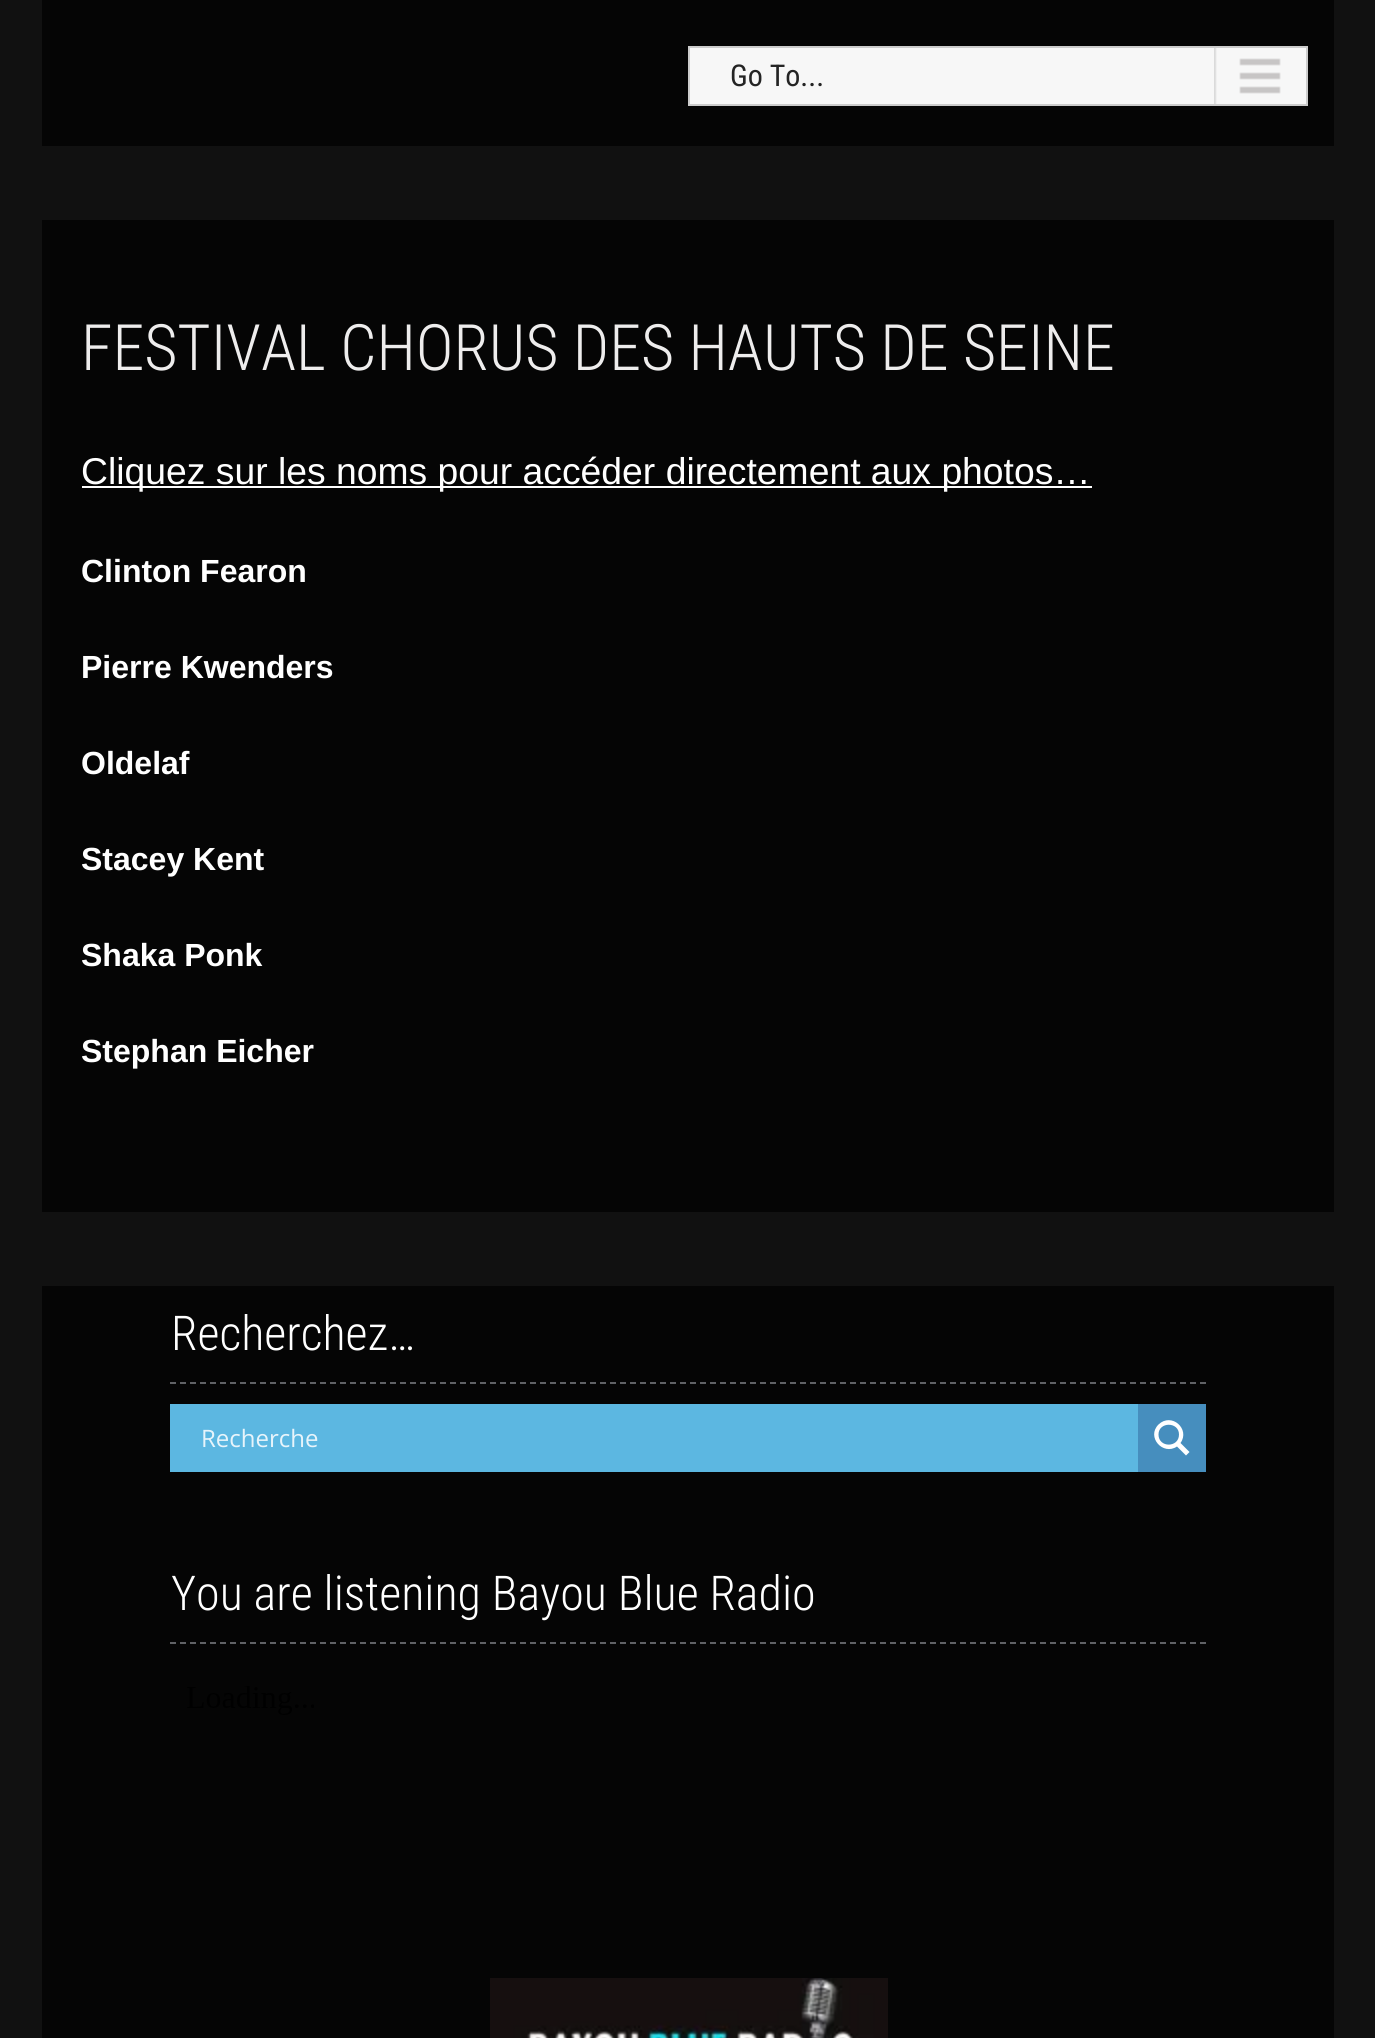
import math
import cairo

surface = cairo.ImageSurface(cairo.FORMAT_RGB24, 1375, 2038)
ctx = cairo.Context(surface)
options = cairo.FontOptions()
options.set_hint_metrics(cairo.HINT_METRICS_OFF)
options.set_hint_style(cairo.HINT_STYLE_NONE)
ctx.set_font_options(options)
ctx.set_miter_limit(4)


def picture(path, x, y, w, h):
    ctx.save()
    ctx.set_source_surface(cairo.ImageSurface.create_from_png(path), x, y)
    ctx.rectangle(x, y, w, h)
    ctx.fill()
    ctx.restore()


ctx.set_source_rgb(0.067, 0.067, 0.067)
ctx.paint()
ctx.set_source_rgb(0.02, 0.02, 0.02)
ctx.rectangle(42, 0, 1292, 146)
ctx.fill()
ctx.set_source_rgb(0.965, 0.965, 0.965)
ctx.rectangle(690, 48, 616, 56)
ctx.fill()
picture("img1.png", 1214, 48, 67, 56)
ctx.rectangle(689, 47, 618, 58)
ctx.set_source_rgb(0.8, 0.8, 0.8)
ctx.stroke()
ctx.select_font_face("Roboto Condensed")
ctx.set_font_size(30)
ctx.set_source_rgb(0.141, 0.141, 0.141)
ctx.move_to(730, 86)
ctx.show_text("Go To...")
ctx.set_source_rgb(0.02, 0.02, 0.02)
ctx.rectangle(42, 220, 1292, 992)
ctx.fill()
ctx.select_font_face("Roboto Condensed Light")
ctx.set_font_size(64)
ctx.set_source_rgb(0.933, 0.929, 0.929)
ctx.move_to(81, 370)
ctx.show_text("FESTIVAL CHORUS DES HAUTS DE SEINE")
ctx.set_source_rgb(1, 1, 1)
ctx.rectangle(82, 486, 1010, 2)
ctx.fill()
ctx.select_font_face("Liberation Sans")
ctx.set_font_size(37.3)
ctx.move_to(81, 484)
ctx.show_text("Cliquez sur les noms pour accéder directement aux photos…")
ctx.select_font_face("Liberation Sans", cairo.FONT_SLANT_NORMAL, cairo.FONT_WEIGHT_BOLD)
ctx.set_font_size(32)
ctx.move_to(81, 582)
ctx.show_text("Clinton Fearon")
ctx.move_to(81, 678)
ctx.show_text("Pierre Kwenders")
ctx.move_to(81, 774)
ctx.show_text("Oldelaf")
ctx.move_to(81, 870)
ctx.show_text("Stacey Kent")
ctx.move_to(81, 966)
ctx.show_text("Shaka Ponk")
ctx.move_to(81, 1062)
ctx.show_text("Stephan Eicher")
ctx.set_source_rgb(0.02, 0.02, 0.02)
ctx.rectangle(42, 1286, 1292, 752)
ctx.fill()
ctx.new_path()
ctx.move_to(170, 1383)
ctx.line_to(1206, 1383)
ctx.set_source_rgb(0.376, 0.384, 0.4)
ctx.set_dash([6, 4])
ctx.stroke()
ctx.select_font_face("Roboto Condensed Light")
ctx.set_font_size(48)
ctx.set_source_rgb(1, 1, 1)
ctx.move_to(171, 1350)
ctx.show_text("Recherchez…")
ctx.set_source_rgb(0.361, 0.718, 0.882)
ctx.rectangle(170, 1404, 968, 68)
ctx.fill()
ctx.select_font_face("Open Sans")
ctx.set_font_size(24)
ctx.set_source_rgb(0.906, 0.957, 0.984)
ctx.move_to(201, 1447)
ctx.show_text("Recherche")
ctx.set_source_rgb(0.275, 0.557, 0.745)
ctx.rectangle(1138, 1404, 68, 68)
ctx.fill()
ctx.set_source_rgb(1, 1, 1)
ctx.new_path()
ctx.move_to(1189.5, 1452)
ctx.line_to(1180.5, 1443)
ctx.curve_to(1190.5, 1429, 1171.5, 1412, 1158.5, 1424.5)
ctx.curve_to(1146, 1437, 1163, 1456, 1177, 1446.5)
ctx.line_to(1186, 1455.5)
ctx.close_path()
ctx.move_to(1158.5, 1434.5)
ctx.curve_to(1158.5, 1421.5, 1179, 1421.5, 1179, 1434.5)
ctx.curve_to(1179, 1448, 1158.5, 1448, 1158.5, 1434.5)
ctx.close_path()
ctx.fill()
ctx.new_path()
ctx.move_to(170, 1643)
ctx.line_to(1206, 1643)
ctx.set_source_rgb(0.376, 0.384, 0.4)
ctx.stroke()
ctx.select_font_face("Roboto Condensed Light")
ctx.set_font_size(48)
ctx.set_source_rgb(1, 1, 1)
ctx.move_to(171, 1610)
ctx.show_text("You are listening Bayou Blue Radio")
picture("img2.png", 187, 1686, 127, 29)
picture("img3.png", 490, 1978, 398, 60)
surface.write_to_png("page.png")
